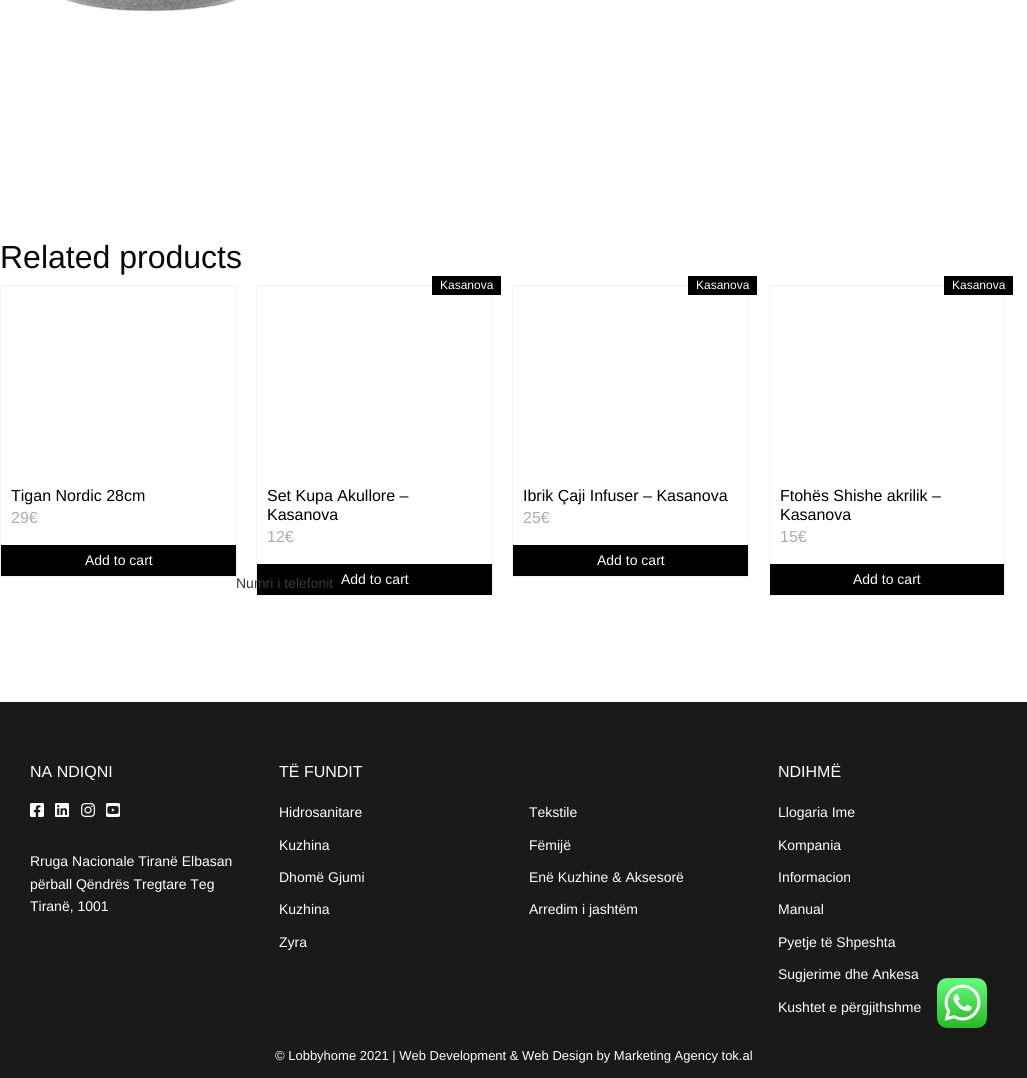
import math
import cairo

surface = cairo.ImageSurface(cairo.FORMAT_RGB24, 1027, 1078)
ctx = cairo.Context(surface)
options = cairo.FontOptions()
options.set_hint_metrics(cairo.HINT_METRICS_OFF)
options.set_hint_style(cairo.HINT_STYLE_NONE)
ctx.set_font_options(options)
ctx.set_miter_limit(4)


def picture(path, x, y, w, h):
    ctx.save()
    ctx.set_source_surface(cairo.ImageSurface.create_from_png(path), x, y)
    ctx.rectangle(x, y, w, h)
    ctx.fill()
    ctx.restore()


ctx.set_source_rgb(1, 1, 1)
ctx.paint()
picture("img1.png", 66, 0, 170, 15)
ctx.select_font_face("Liberation Sans")
ctx.set_font_size(32)
ctx.set_source_rgb(0.039, 0.039, 0.039)
ctx.move_to(0, 268)
ctx.show_text("Related products")
ctx.rectangle(0.5, 285.5, 236, 291)
ctx.set_source_rgb(0.949, 0.949, 0.949)
ctx.set_line_width(1)
ctx.stroke()
ctx.set_font_size(16)
ctx.set_source_rgb(0, 0, 0)
ctx.move_to(11, 501)
ctx.show_text("Tigan Nordic 28cm")
ctx.set_source_rgb(0.675, 0.675, 0.675)
ctx.move_to(11, 523)
ctx.show_text("29€")
ctx.set_source_rgb(0, 0, 0)
ctx.rectangle(1, 545, 235, 31)
ctx.fill()
ctx.set_font_size(14)
ctx.set_source_rgb(0.996, 0.996, 0.996)
ctx.move_to(85, 565)
ctx.show_text("Add to cart")
ctx.rectangle(256.5, 285.5, 236, 310)
ctx.set_source_rgb(0.949, 0.949, 0.949)
ctx.stroke()
ctx.set_source_rgb(0, 0, 0)
ctx.rectangle(432, 276, 69, 19)
ctx.fill()
ctx.set_font_size(12)
ctx.set_source_rgb(0.996, 0.996, 0.996)
ctx.move_to(440, 289)
ctx.show_text("Kasanova")
ctx.set_font_size(16)
ctx.set_source_rgb(0, 0, 0)
ctx.move_to(267, 501)
ctx.show_text("Set Kupa Akullore –")
ctx.move_to(267, 520)
ctx.show_text("Kasanova")
ctx.set_source_rgb(0.675, 0.675, 0.675)
ctx.move_to(267, 542)
ctx.show_text("12€")
ctx.set_source_rgb(0, 0, 0)
ctx.rectangle(257, 564, 235, 31)
ctx.fill()
ctx.set_font_size(14)
ctx.set_source_rgb(0.996, 0.996, 0.996)
ctx.move_to(341, 584)
ctx.show_text("Add to cart")
ctx.rectangle(512.5, 285.5, 236, 291)
ctx.set_source_rgb(0.949, 0.949, 0.949)
ctx.stroke()
ctx.set_source_rgb(0, 0, 0)
ctx.rectangle(688, 276, 69, 19)
ctx.fill()
ctx.set_font_size(12)
ctx.set_source_rgb(0.996, 0.996, 0.996)
ctx.move_to(696, 289)
ctx.show_text("Kasanova")
ctx.set_font_size(16)
ctx.set_source_rgb(0, 0, 0)
ctx.move_to(523, 501)
ctx.show_text("Ibrik Çaji Infuser – Kasanova")
ctx.set_source_rgb(0.675, 0.675, 0.675)
ctx.move_to(523, 523)
ctx.show_text("25€")
ctx.set_source_rgb(0, 0, 0)
ctx.rectangle(513, 545, 235, 31)
ctx.fill()
ctx.set_font_size(14)
ctx.set_source_rgb(0.996, 0.996, 0.996)
ctx.move_to(597, 565)
ctx.show_text("Add to cart")
ctx.rectangle(769.5, 285.5, 235, 310)
ctx.set_source_rgb(0.949, 0.949, 0.949)
ctx.stroke()
ctx.set_source_rgb(0, 0, 0)
ctx.rectangle(944, 276, 69, 19)
ctx.fill()
ctx.set_font_size(12)
ctx.set_source_rgb(0.996, 0.996, 0.996)
ctx.move_to(952, 289)
ctx.show_text("Kasanova")
ctx.set_font_size(16)
ctx.set_source_rgb(0, 0, 0)
ctx.move_to(780, 501)
ctx.show_text("Ftohës Shishe akrilik –")
ctx.move_to(780, 520)
ctx.show_text("Kasanova")
ctx.set_source_rgb(0.675, 0.675, 0.675)
ctx.move_to(780, 542)
ctx.show_text("15€")
ctx.set_source_rgb(0, 0, 0)
ctx.rectangle(770, 564, 234, 31)
ctx.fill()
ctx.set_font_size(14)
ctx.set_source_rgb(0.996, 0.996, 0.996)
ctx.move_to(853, 584)
ctx.show_text("Add to cart")
ctx.set_source_rgb(0.224, 0.224, 0.224)
ctx.move_to(236, 588)
ctx.show_text("Numri i telefonit")
ctx.set_source_rgb(0.102, 0.102, 0.102)
ctx.rectangle(0, 702, 1027, 376)
ctx.fill()
ctx.set_font_size(16)
ctx.set_source_rgb(0.996, 0.996, 0.996)
ctx.move_to(30, 777)
ctx.show_text("NA NDIQNI")
picture("img2.png", 30, 803, 14, 14)
picture("img3.png", 55, 803, 14, 14)
picture("img4.png", 81, 803, 15, 14)
picture("img5.png", 106, 803, 14, 14)
ctx.set_font_size(14)
ctx.move_to(30, 866)
ctx.show_text("Rruga Nacionale Tiranë Elbasan")
ctx.move_to(30, 889)
ctx.show_text("përball Qëndrës Tregtare Teg")
ctx.move_to(30, 911)
ctx.show_text("Tiranë, 1001")
ctx.set_font_size(16)
ctx.move_to(279, 777)
ctx.show_text("TË FUNDIT")
ctx.set_font_size(14)
ctx.move_to(279, 817)
ctx.show_text("Hidrosanitare")
ctx.move_to(279, 850)
ctx.show_text("Kuzhina")
ctx.move_to(279, 882)
ctx.show_text("Dhomë Gjumi")
ctx.move_to(279, 914)
ctx.show_text("Kuzhina")
ctx.move_to(279, 947)
ctx.show_text("Zyra")
ctx.move_to(529, 817)
ctx.show_text("Tekstile")
ctx.move_to(529, 850)
ctx.show_text("Fëmijë")
ctx.move_to(529, 882)
ctx.show_text("Enë Kuzhine & Aksesorë")
ctx.move_to(529, 914)
ctx.show_text("Arredim i jashtëm")
ctx.set_font_size(16)
ctx.move_to(778, 777)
ctx.show_text("NDIHMË")
ctx.set_font_size(14)
ctx.move_to(778, 817)
ctx.show_text("Llogaria Ime")
ctx.move_to(778, 850)
ctx.show_text("Kompania")
ctx.move_to(778, 882)
ctx.show_text("Informacion")
ctx.move_to(778, 914)
ctx.show_text("Manual")
ctx.move_to(778, 947)
ctx.show_text("Pyetje të Shpeshta")
ctx.move_to(778, 979)
ctx.show_text("Sugjerime dhe Ankesa")
ctx.move_to(778, 1012)
ctx.show_text("Kushtet e përgjithshme")
ctx.set_font_size(13)
ctx.move_to(275, 1060)
ctx.show_text("© Lobbyhome 2021 | Web Development & Web Design by Marketing Agency tok.al")
picture("img6.png", 937, 978, 50, 50)
surface.write_to_png("page.png")
